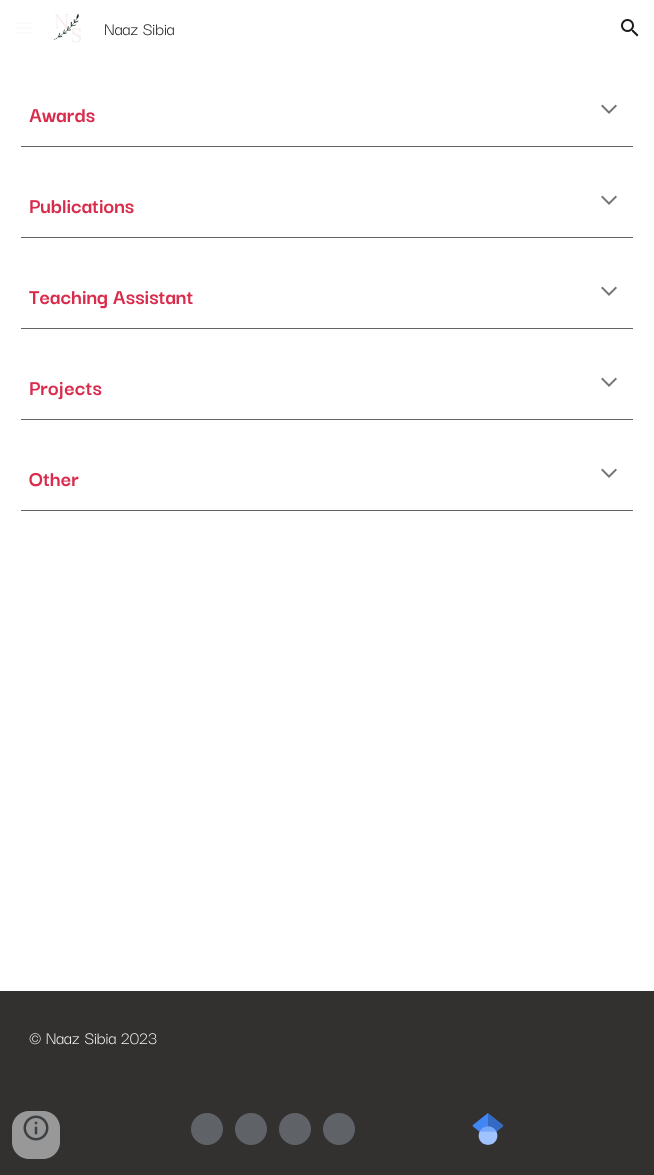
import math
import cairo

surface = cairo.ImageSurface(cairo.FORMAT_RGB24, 654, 1175)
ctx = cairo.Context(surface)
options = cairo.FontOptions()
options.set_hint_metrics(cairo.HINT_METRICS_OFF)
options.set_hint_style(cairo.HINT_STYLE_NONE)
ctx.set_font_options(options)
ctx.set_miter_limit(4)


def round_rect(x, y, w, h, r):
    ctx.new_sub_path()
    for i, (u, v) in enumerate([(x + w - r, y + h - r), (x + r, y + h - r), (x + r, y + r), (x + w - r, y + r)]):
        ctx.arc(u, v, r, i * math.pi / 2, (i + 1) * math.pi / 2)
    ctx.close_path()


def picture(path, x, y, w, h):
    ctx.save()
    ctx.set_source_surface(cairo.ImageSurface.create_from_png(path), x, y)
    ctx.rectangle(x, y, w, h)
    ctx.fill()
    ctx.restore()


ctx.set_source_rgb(1, 1, 1)
ctx.paint()
ctx.set_source_rgb(0.98, 0.98, 0.98)
ctx.rectangle(15, 22, 18, 2)
ctx.fill()
ctx.rectangle(15, 27, 18, 2)
ctx.fill()
ctx.rectangle(15, 32, 18, 2)
ctx.fill()
picture("img1.png", 53, 13, 28, 30)
ctx.select_font_face("Darker Grotesque")
ctx.set_font_size(18.75)
ctx.set_source_rgb(0.11, 0.11, 0.11)
ctx.move_to(104, 35)
ctx.show_text("Naaz Sibia")
picture("img2.png", 621, 19, 18, 18)
ctx.set_source_rgb(0.373, 0.388, 0.408)
ctx.rectangle(21, 146, 612, 1)
ctx.fill()
ctx.select_font_face("Darker Grotesque", cairo.FONT_SLANT_NORMAL, cairo.FONT_WEIGHT_BOLD)
ctx.set_font_size(22.75)
ctx.set_source_rgb(0.851, 0.169, 0.294)
ctx.move_to(29, 122)
ctx.show_text("Awards")
picture("img3.png", 601, 104, 16, 10)
ctx.set_source_rgb(0.373, 0.388, 0.408)
ctx.rectangle(21, 237, 612, 1)
ctx.fill()
ctx.set_source_rgb(0.851, 0.169, 0.294)
ctx.move_to(29, 213)
ctx.show_text("Publications")
picture("img3.png", 601, 195, 16, 10)
ctx.set_source_rgb(0.373, 0.388, 0.408)
ctx.rectangle(21, 328, 612, 1)
ctx.fill()
ctx.set_source_rgb(0.851, 0.169, 0.294)
ctx.move_to(29, 304)
ctx.show_text("Teaching Assistant")
picture("img3.png", 601, 286, 16, 10)
ctx.set_source_rgb(0.373, 0.388, 0.408)
ctx.rectangle(21, 419, 612, 1)
ctx.fill()
ctx.set_source_rgb(0.851, 0.169, 0.294)
ctx.move_to(29, 395)
ctx.show_text("Projects")
picture("img3.png", 601, 377, 16, 10)
ctx.set_source_rgb(0.373, 0.388, 0.408)
ctx.rectangle(21, 510, 612, 1)
ctx.fill()
ctx.set_source_rgb(0.851, 0.169, 0.294)
ctx.move_to(29, 486)
ctx.show_text("Other")
picture("img3.png", 601, 468, 16, 10)
ctx.set_source_rgb(0.2, 0.188, 0.188)
ctx.rectangle(0, 991, 654, 184)
ctx.fill()
ctx.select_font_face("Darker Grotesque")
ctx.set_font_size(18.75)
ctx.set_source_rgb(0.976, 0.976, 0.976)
ctx.move_to(29, 1044)
ctx.show_text("© Naaz Sibia 2023")
ctx.set_source_rgb(0.373, 0.388, 0.408)
ctx.new_path()
ctx.arc(207, 1129, 16, 0, 2 * math.pi)
ctx.fill()
ctx.arc(251, 1129, 16, 0, 2 * math.pi)
ctx.fill()
ctx.arc(295, 1129, 16, 0, 2 * math.pi)
ctx.fill()
ctx.arc(339, 1129, 16, 0, 2 * math.pi)
ctx.fill()
picture("img4.png", 472, 1113, 32, 32)
ctx.set_source_rgb(0.6, 0.596, 0.596)
round_rect(12, 1111, 48, 48, 17)
ctx.fill()
picture("img5.png", 23, 1115, 26, 26)
surface.write_to_png("page.png")
